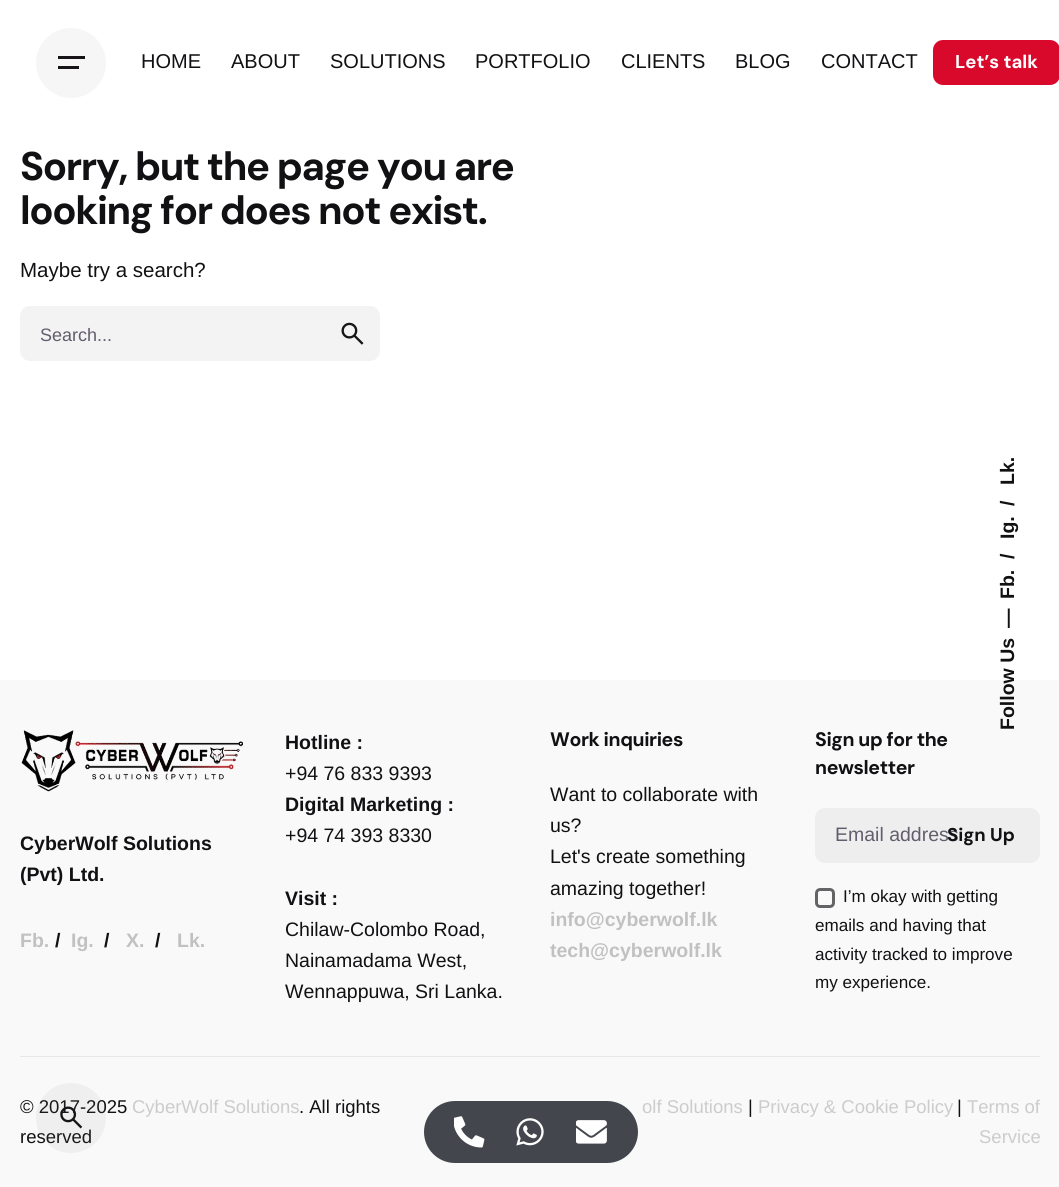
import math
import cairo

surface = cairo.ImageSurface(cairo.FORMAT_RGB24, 1059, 1187)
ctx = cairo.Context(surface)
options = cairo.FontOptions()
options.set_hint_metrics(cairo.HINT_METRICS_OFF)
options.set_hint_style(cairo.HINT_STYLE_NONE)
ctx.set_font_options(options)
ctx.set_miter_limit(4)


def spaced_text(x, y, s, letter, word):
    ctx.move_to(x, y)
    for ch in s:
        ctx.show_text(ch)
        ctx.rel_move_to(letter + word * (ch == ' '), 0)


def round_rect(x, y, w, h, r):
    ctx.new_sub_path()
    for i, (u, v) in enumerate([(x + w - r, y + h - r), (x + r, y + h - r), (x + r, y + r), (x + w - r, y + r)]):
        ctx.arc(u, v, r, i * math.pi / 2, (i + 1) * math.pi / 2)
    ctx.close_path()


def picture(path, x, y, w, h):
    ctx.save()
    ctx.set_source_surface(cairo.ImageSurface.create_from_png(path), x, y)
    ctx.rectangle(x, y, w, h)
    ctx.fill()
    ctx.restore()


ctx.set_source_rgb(1, 1, 1)
ctx.paint()
ctx.set_source_rgb(0.961, 0.961, 0.965)
ctx.arc(71, 63, 35, 0, 2 * math.pi)
ctx.fill()
ctx.set_source_rgb(0.086, 0.082, 0.094)
ctx.rectangle(58, 56, 27, 3)
ctx.fill()
ctx.rectangle(58, 66, 21, 3)
ctx.fill()
ctx.select_font_face("Liberation Sans")
ctx.set_font_size(20)
ctx.set_source_rgb(0.067, 0.063, 0.075)
ctx.move_to(141, 68)
ctx.show_text("HOME")
ctx.move_to(231, 68)
ctx.show_text("ABOUT")
ctx.move_to(330, 68)
ctx.show_text("SOLUTIONS")
ctx.move_to(475, 68)
ctx.show_text("PORTFOLIO")
ctx.move_to(621, 68)
ctx.show_text("CLIENTS")
ctx.move_to(735, 68)
ctx.show_text("BLOG")
ctx.move_to(821, 68)
ctx.show_text("CONTACT")
ctx.set_source_rgb(0.851, 0.039, 0.173)
round_rect(933, 40, 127, 45, 10)
ctx.fill()
ctx.select_font_face("DM Sans", cairo.FONT_SLANT_NORMAL, cairo.FONT_WEIGHT_BOLD)
ctx.set_font_size(18.5)
ctx.set_source_rgb(1, 1, 1)
ctx.move_to(955, 68)
ctx.show_text("Let’s talk")
ctx.set_font_size(40)
ctx.set_source_rgb(0.067, 0.063, 0.075)
spaced_text(20, 180, "Sorry, but the page you are", -1.4, 0)
spaced_text(20, 224, "looking for does not exist.", -1.4, 0)
ctx.select_font_face("Liberation Sans")
ctx.set_font_size(20.5)
ctx.move_to(20, 277)
ctx.show_text("Maybe try a search?")
ctx.set_source_rgb(0.953, 0.953, 0.953)
round_rect(20, 306, 360, 55, 10)
ctx.fill()
ctx.set_font_size(18)
ctx.set_source_rgb(0.388, 0.365, 0.431)
ctx.move_to(40, 341)
ctx.show_text("Search...")
picture("img1.png", 341, 322, 23, 23)
ctx.select_font_face("Liberation Sans", cairo.FONT_SLANT_NORMAL, cairo.FONT_WEIGHT_BOLD)
ctx.set_font_size(19.5)
ctx.set_source_rgb(0.067, 0.063, 0.075)
ctx.save()
ctx.translate(1014, 485)
ctx.rotate(-90 * math.pi / 180)
ctx.move_to(0, 0)
ctx.show_text("Lk.")
ctx.restore()
ctx.save()
ctx.translate(1014, 506)
ctx.rotate(-90 * math.pi / 180)
ctx.move_to(0, 0)
ctx.show_text("/")
ctx.restore()
ctx.save()
ctx.translate(1014, 539)
ctx.rotate(-90 * math.pi / 180)
ctx.move_to(0, 0)
ctx.show_text("Ig.")
ctx.restore()
ctx.save()
ctx.translate(1014, 559)
ctx.rotate(-90 * math.pi / 180)
ctx.move_to(0, 0)
ctx.show_text("/")
ctx.restore()
ctx.save()
ctx.translate(1014, 599)
ctx.rotate(-90 * math.pi / 180)
ctx.move_to(0, 0)
ctx.show_text("Fb.")
ctx.restore()
ctx.save()
ctx.translate(1014, 628)
ctx.rotate(-90 * math.pi / 180)
ctx.move_to(0, 0)
ctx.show_text("—")
ctx.restore()
ctx.set_source_rgb(0.976, 0.976, 0.976)
ctx.rectangle(0, 680, 1059, 507)
ctx.fill()
ctx.set_source_rgb(0.067, 0.063, 0.075)
ctx.save()
ctx.translate(1014, 730)
ctx.rotate(-90 * math.pi / 180)
ctx.move_to(0, 0)
ctx.show_text("Follow Us")
ctx.restore()
picture("img2.png", 21, 730, 222, 62)
ctx.move_to(20, 850)
ctx.show_text("CyberWolf Solutions")
ctx.move_to(20, 881)
ctx.show_text("(Pvt) Ltd.")
ctx.set_source_rgb(0.757, 0.757, 0.757)
ctx.move_to(20, 947)
ctx.show_text("Fb.")
ctx.set_source_rgb(0.067, 0.063, 0.075)
ctx.move_to(55, 947)
ctx.show_text("/")
ctx.set_source_rgb(0.757, 0.757, 0.757)
ctx.move_to(71, 947)
ctx.show_text("Ig.")
ctx.set_source_rgb(0.067, 0.063, 0.075)
ctx.move_to(104, 947)
ctx.show_text("/")
ctx.set_source_rgb(0.757, 0.757, 0.757)
ctx.move_to(126, 947)
ctx.show_text("X.")
ctx.set_source_rgb(0.067, 0.063, 0.075)
ctx.move_to(155, 947)
ctx.show_text("/")
ctx.set_source_rgb(0.757, 0.757, 0.757)
ctx.move_to(177, 947)
ctx.show_text("Lk.")
ctx.set_source_rgb(0.067, 0.063, 0.075)
ctx.move_to(285, 749)
ctx.show_text("Hotline :")
ctx.select_font_face("Liberation Sans")
ctx.move_to(285, 780)
ctx.show_text("+94 76 833 9393")
ctx.select_font_face("Liberation Sans", cairo.FONT_SLANT_NORMAL, cairo.FONT_WEIGHT_BOLD)
ctx.move_to(285, 811)
ctx.show_text("Digital Marketing :")
ctx.select_font_face("Liberation Sans")
ctx.move_to(285, 842)
ctx.show_text("+94 74 393 8330")
ctx.select_font_face("Liberation Sans", cairo.FONT_SLANT_NORMAL, cairo.FONT_WEIGHT_BOLD)
ctx.move_to(285, 905)
ctx.show_text("Visit :")
ctx.select_font_face("Liberation Sans")
ctx.move_to(285, 936)
ctx.show_text("Chilaw-Colombo Road,")
ctx.move_to(285, 967)
ctx.show_text("Nainamadama West,")
ctx.move_to(285, 998)
ctx.show_text("Wennappuwa, Sri Lanka.")
ctx.select_font_face("DM Sans", cairo.FONT_SLANT_NORMAL, cairo.FONT_WEIGHT_BOLD)
spaced_text(550, 746, "Work inquiries", -0.4, 0)
ctx.select_font_face("Liberation Sans")
ctx.move_to(550, 801)
ctx.show_text("Want to collaborate with")
ctx.move_to(550, 832)
ctx.show_text("us?")
ctx.move_to(550, 863)
ctx.show_text("Let's create something")
ctx.move_to(550, 895)
ctx.show_text("amazing together!")
ctx.select_font_face("Liberation Sans", cairo.FONT_SLANT_NORMAL, cairo.FONT_WEIGHT_BOLD)
ctx.set_source_rgb(0.757, 0.757, 0.757)
ctx.move_to(550, 926)
ctx.show_text("info@cyberwolf.lk")
ctx.move_to(550, 957)
ctx.show_text("tech@cyberwolf.lk")
ctx.select_font_face("DM Sans", cairo.FONT_SLANT_NORMAL, cairo.FONT_WEIGHT_BOLD)
ctx.set_source_rgb(0.067, 0.063, 0.075)
spaced_text(815, 746, "Sign up for the", -0.4, 0)
spaced_text(815, 774, "newsletter", -0.4, 0)
ctx.set_source_rgb(0.933, 0.933, 0.933)
round_rect(815, 808, 225, 55, 10)
ctx.fill()
ctx.select_font_face("Liberation Sans")
ctx.set_source_rgb(0.388, 0.365, 0.431)
ctx.move_to(835, 841)
ctx.show_text("Email address")
ctx.select_font_face("DM Sans", cairo.FONT_SLANT_NORMAL, cairo.FONT_WEIGHT_BOLD)
ctx.set_font_size(18.5)
ctx.set_source_rgb(0.067, 0.063, 0.075)
ctx.move_to(947, 841)
ctx.show_text("Sign Up")
round_rect(816.5, 889.5, 17, 17, 3.5)
ctx.set_source_rgb(0.392, 0.392, 0.4)
ctx.set_line_width(3)
ctx.stroke()
ctx.select_font_face("Liberation Sans")
ctx.set_font_size(17.1)
ctx.set_source_rgb(0.067, 0.063, 0.075)
ctx.move_to(843, 902)
ctx.show_text("I’m okay with getting")
ctx.move_to(815, 931)
ctx.show_text("emails and having that")
ctx.move_to(815, 960)
ctx.show_text("activity tracked to improve")
ctx.move_to(815, 988)
ctx.show_text("my experience.")
ctx.set_source_rgb(0.906, 0.906, 0.906)
ctx.rectangle(20, 1056, 1020, 1)
ctx.fill()
ctx.set_font_size(18.5)
ctx.set_source_rgb(0.067, 0.063, 0.075)
ctx.move_to(20, 1113)
ctx.show_text("© 2017-2025")
ctx.set_source_rgb(0.8, 0.8, 0.8)
ctx.move_to(132, 1113)
ctx.show_text("CyberWolf Solutions")
ctx.set_source_rgb(0.067, 0.063, 0.075)
ctx.move_to(299, 1113)
ctx.show_text(". All rights")
ctx.move_to(20, 1143)
ctx.show_text("reserved")
ctx.set_source_rgb(0.8, 0.8, 0.8)
ctx.move_to(642, 1113)
ctx.show_text("olf Solutions")
ctx.set_source_rgb(0.067, 0.063, 0.075)
ctx.move_to(748, 1113)
ctx.show_text("|")
ctx.set_source_rgb(0.8, 0.8, 0.8)
ctx.move_to(758, 1113)
ctx.show_text("Privacy & Cookie Policy")
ctx.set_source_rgb(0.067, 0.063, 0.075)
ctx.move_to(957, 1113)
ctx.show_text("|")
ctx.set_source_rgb(0.8, 0.8, 0.8)
ctx.move_to(967, 1113)
ctx.show_text("Terms of")
ctx.move_to(979, 1143)
ctx.show_text("Service")
ctx.set_source_rgba(0.533, 0.533, 0.537, 0.08)
ctx.new_path()
ctx.arc(71, 1118, 35, 0, 2 * math.pi)
ctx.fill()
picture("img3.png", 60, 1106, 23, 23)
ctx.set_source_rgb(0.263, 0.278, 0.302)
round_rect(424, 1101, 214, 62, 31)
ctx.fill()
picture("img4.png", 454, 1116, 31, 32)
picture("img5.png", 516, 1118, 28, 28)
picture("img6.png", 576, 1120, 31, 24)
surface.write_to_png("page.png")
